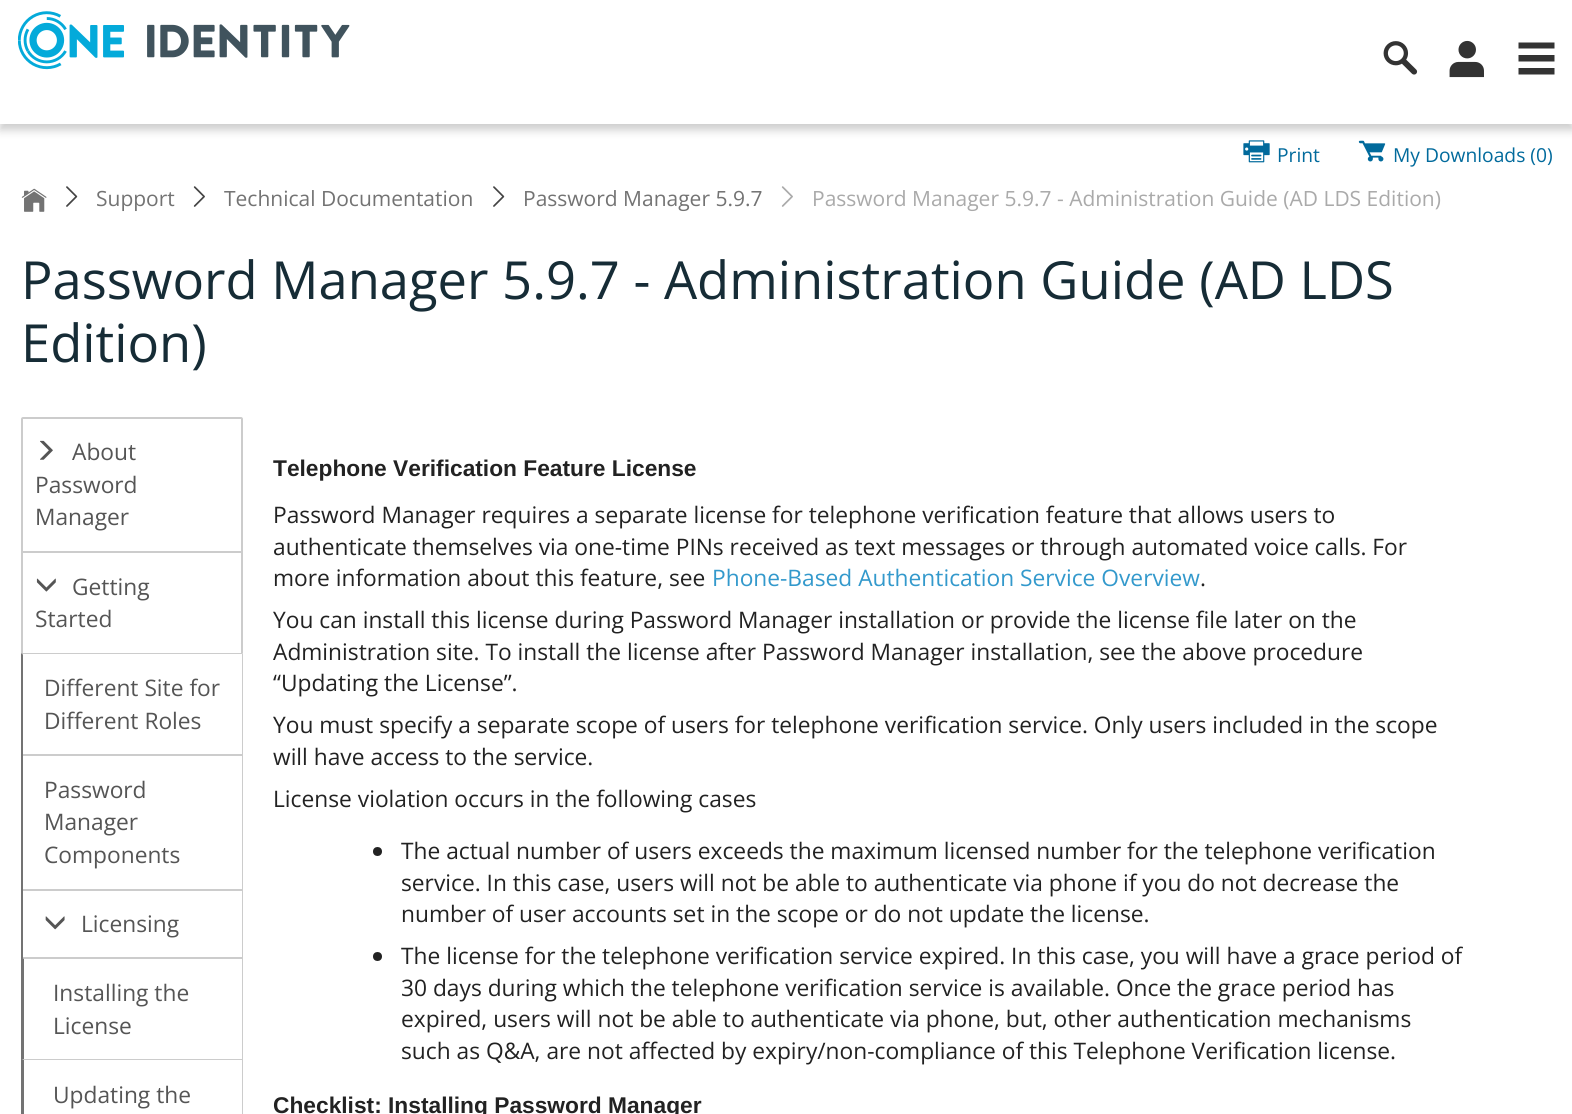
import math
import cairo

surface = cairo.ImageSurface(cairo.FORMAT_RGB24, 1572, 1114)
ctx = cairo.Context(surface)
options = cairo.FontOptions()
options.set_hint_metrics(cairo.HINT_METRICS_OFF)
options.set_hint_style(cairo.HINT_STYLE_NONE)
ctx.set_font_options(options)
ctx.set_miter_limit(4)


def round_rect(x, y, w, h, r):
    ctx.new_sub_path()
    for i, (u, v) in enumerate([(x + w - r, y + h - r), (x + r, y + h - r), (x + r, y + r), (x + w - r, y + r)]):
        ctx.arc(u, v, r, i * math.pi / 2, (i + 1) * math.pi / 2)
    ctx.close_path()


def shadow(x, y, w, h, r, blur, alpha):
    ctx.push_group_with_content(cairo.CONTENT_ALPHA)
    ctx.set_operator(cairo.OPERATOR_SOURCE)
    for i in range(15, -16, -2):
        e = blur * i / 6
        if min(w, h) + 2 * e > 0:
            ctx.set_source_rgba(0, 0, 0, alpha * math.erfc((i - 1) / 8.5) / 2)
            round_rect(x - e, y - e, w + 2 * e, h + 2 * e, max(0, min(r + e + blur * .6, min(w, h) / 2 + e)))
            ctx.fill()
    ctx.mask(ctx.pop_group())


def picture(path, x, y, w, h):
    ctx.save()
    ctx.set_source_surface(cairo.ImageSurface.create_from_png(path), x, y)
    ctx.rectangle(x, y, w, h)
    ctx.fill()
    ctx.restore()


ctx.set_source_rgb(1, 1, 1)
ctx.paint()
picture("img4.png", 1243, 140, 27, 23)
picture("img5.png", 1358, 140, 28, 22)
ctx.save()
ctx.rectangle(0, 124, 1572, 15)
ctx.clip()
ctx.set_source_rgb(0.804, 0.804, 0.804)
shadow(0, 4, 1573, 126, 0, 4.5, 1)
ctx.restore()
picture("img1.png", 18, 11, 332, 59)
picture("img2.png", 1383, 41, 35, 34)
picture("img3.png", 1449, 40, 35, 38)
ctx.set_source_rgb(0.2, 0.2, 0.2)
ctx.new_path()
ctx.move_to(1518.5, 42.5)
ctx.line_to(1554.5, 42.5)
ctx.line_to(1554.5, 48.5)
ctx.line_to(1518.5, 48.5)
ctx.close_path()
ctx.move_to(1518.5, 55)
ctx.line_to(1554.5, 55)
ctx.line_to(1554.5, 61.5)
ctx.line_to(1518.5, 61.5)
ctx.close_path()
ctx.move_to(1518.5, 68)
ctx.line_to(1554.5, 68)
ctx.line_to(1554.5, 74.5)
ctx.line_to(1518.5, 74.5)
ctx.close_path()
ctx.fill()
ctx.select_font_face("Open Sans")
ctx.set_font_size(19.25)
ctx.set_source_rgb(0.004, 0.416, 0.612)
ctx.move_to(1277, 162)
ctx.show_text("Print")
ctx.move_to(1393, 162)
ctx.show_text("My Downloads (0)")
picture("img6.png", 21, 188, 26, 24)
picture("img7.png", 66, 186, 12, 21)
ctx.set_font_size(21)
ctx.set_source_rgb(0.451, 0.451, 0.451)
ctx.move_to(96, 206)
ctx.show_text("Support")
picture("img8.png", 193, 186, 12, 21)
ctx.move_to(224, 206)
ctx.show_text("Technical Documentation")
picture("img7.png", 493, 186, 12, 21)
ctx.move_to(523, 206)
ctx.show_text("Password Manager 5.9.7")
picture("img9.png", 781, 186, 12, 21)
ctx.set_source_rgb(0.667, 0.667, 0.667)
ctx.move_to(812, 206)
ctx.show_text("Password Manager 5.9.7 - Administration Guide (AD LDS Edition)")
ctx.set_font_size(52.5)
ctx.set_source_rgb(0.086, 0.173, 0.212)
ctx.move_to(21, 299)
ctx.show_text("Password Manager 5.9.7 - Administration Guide (AD LDS")
ctx.move_to(21, 362)
ctx.show_text("Edition)")
ctx.new_path()
ctx.move_to(23, 418)
ctx.line_to(241, 418)
ctx.curve_to(241.5, 418, 242, 418.5, 242, 419)
ctx.line_to(242, 552)
ctx.line_to(22, 552)
ctx.line_to(22, 419)
ctx.curve_to(22, 418.5, 22.5, 418, 23, 418)
ctx.close_path()
ctx.set_source_rgb(0.8, 0.8, 0.8)
ctx.stroke()
picture("img10.png", 40, 440, 13, 20)
ctx.set_font_size(22.75)
ctx.set_source_rgb(0.333, 0.333, 0.333)
ctx.move_to(72, 460)
ctx.show_text("About")
ctx.move_to(35, 493)
ctx.show_text("Password")
ctx.move_to(35, 525)
ctx.show_text("Manager")
ctx.rectangle(22, 552, 220, 102)
ctx.set_source_rgb(0.8, 0.8, 0.8)
ctx.stroke()
picture("img11.png", 36, 578, 20, 14)
ctx.set_source_rgb(0.333, 0.333, 0.333)
ctx.move_to(72, 595)
ctx.show_text("Getting")
ctx.move_to(35, 627)
ctx.show_text("Started")
ctx.set_source_rgb(1, 1, 1)
ctx.new_path()
ctx.move_to(23, 653)
ctx.line_to(241, 653)
ctx.curve_to(242, 653, 243, 654, 243, 655)
ctx.line_to(243, 756)
ctx.line_to(21, 756)
ctx.line_to(21, 655)
ctx.curve_to(21, 654, 22, 653, 23, 653)
ctx.close_path()
ctx.fill()
ctx.set_source_rgb(0.8, 0.8, 0.8)
ctx.new_path()
ctx.move_to(23, 653)
ctx.line_to(22, 653)
ctx.line_to(23, 655)
ctx.line_to(23, 654)
ctx.line_to(242, 654)
ctx.line_to(242, 653)
ctx.close_path()
ctx.fill()
ctx.new_path()
ctx.move_to(243, 756)
ctx.line_to(243, 654)
ctx.line_to(242, 654)
ctx.line_to(242, 754)
ctx.line_to(241, 754)
ctx.close_path()
ctx.fill()
ctx.set_source_rgb(0.451, 0.451, 0.451)
ctx.new_path()
ctx.move_to(21, 756)
ctx.line_to(23, 754)
ctx.line_to(23, 655)
ctx.line_to(22, 653)
ctx.line_to(21, 654)
ctx.close_path()
ctx.fill()
ctx.set_source_rgb(0.333, 0.333, 0.333)
ctx.move_to(44, 696)
ctx.show_text("Different Site for")
ctx.move_to(44, 729)
ctx.show_text("Different Roles")
ctx.set_source_rgb(0.8, 0.8, 0.8)
ctx.rectangle(21, 754, 222, 2)
ctx.fill()
ctx.rectangle(242, 754, 1, 137)
ctx.fill()
ctx.set_source_rgb(0.451, 0.451, 0.451)
ctx.rectangle(21, 754, 2, 137)
ctx.fill()
ctx.set_source_rgb(0.333, 0.333, 0.333)
ctx.move_to(44, 798)
ctx.show_text("Password")
ctx.move_to(44, 830)
ctx.show_text("Manager")
ctx.move_to(44, 863)
ctx.show_text("Components")
ctx.set_source_rgb(0.8, 0.8, 0.8)
ctx.rectangle(21, 889, 222, 2)
ctx.fill()
ctx.rectangle(242, 889, 1, 70)
ctx.fill()
ctx.rectangle(21, 957, 222, 2)
ctx.fill()
ctx.set_source_rgb(0.451, 0.451, 0.451)
ctx.rectangle(21, 889, 2, 70)
ctx.fill()
picture("img12.png", 45, 916, 20, 14)
ctx.set_source_rgb(0.333, 0.333, 0.333)
ctx.move_to(81, 932)
ctx.show_text("Licensing")
ctx.set_source_rgb(0.8, 0.8, 0.8)
ctx.new_path()
ctx.move_to(22, 958)
ctx.line_to(242, 957)
ctx.line_to(243, 958)
ctx.line_to(242, 959)
ctx.line_to(24, 959)
ctx.close_path()
ctx.fill()
ctx.new_path()
ctx.move_to(243, 958)
ctx.line_to(243, 1060)
ctx.line_to(242, 1059)
ctx.line_to(242, 959)
ctx.close_path()
ctx.fill()
ctx.set_source_rgb(0.451, 0.451, 0.451)
ctx.new_path()
ctx.move_to(24, 959)
ctx.line_to(22, 958)
ctx.line_to(21, 959)
ctx.line_to(21, 1060)
ctx.line_to(24, 1059)
ctx.close_path()
ctx.fill()
ctx.set_source_rgb(0.333, 0.333, 0.333)
ctx.move_to(53, 1001)
ctx.show_text("Installing the")
ctx.move_to(53, 1034)
ctx.show_text("License")
ctx.set_source_rgb(0.8, 0.8, 0.8)
ctx.new_path()
ctx.move_to(21, 1059)
ctx.line_to(243, 1059)
ctx.line_to(242, 1060)
ctx.line_to(24, 1060)
ctx.close_path()
ctx.fill()
ctx.rectangle(242, 1059, 1, 55)
ctx.fill()
ctx.set_source_rgb(0.451, 0.451, 0.451)
ctx.new_path()
ctx.move_to(21, 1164)
ctx.line_to(21, 1059)
ctx.line_to(24, 1060)
ctx.line_to(24, 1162)
ctx.close_path()
ctx.fill()
ctx.set_source_rgb(0.333, 0.333, 0.333)
ctx.move_to(53, 1103)
ctx.show_text("Updating the")
ctx.select_font_face("Liberation Sans", cairo.FONT_SLANT_NORMAL, cairo.FONT_WEIGHT_BOLD)
ctx.set_source_rgb(0.133, 0.133, 0.133)
ctx.move_to(273, 476)
ctx.show_text("Telephone Verification Feature License")
ctx.select_font_face("Open Sans")
ctx.move_to(273, 523)
ctx.show_text("Password Manager requires a separate license for telephone verification feature that allows users to")
ctx.move_to(273, 555)
ctx.show_text("authenticate themselves via one-time PINs received as text messages or through automated voice calls. For")
ctx.move_to(273, 586)
ctx.show_text("more information about this feature, see")
ctx.set_source_rgb(0.2, 0.6, 0.8)
ctx.move_to(712, 586)
ctx.show_text("Phone-Based Authentication Service Overview")
ctx.set_source_rgb(0.133, 0.133, 0.133)
ctx.move_to(1200, 586)
ctx.show_text(".")
ctx.move_to(273, 628)
ctx.show_text("You can install this license during Password Manager installation or provide the license file later on the")
ctx.move_to(273, 660)
ctx.show_text("Administration site. To install the license after Password Manager installation, see the above procedure")
ctx.move_to(273, 691)
ctx.show_text("“Updating the License”.")
ctx.move_to(273, 733)
ctx.show_text("You must specify a separate scope of users for telephone verification service. Only users included in the scope")
ctx.move_to(273, 765)
ctx.show_text("will have access to the service.")
ctx.move_to(273, 807)
ctx.show_text("License violation occurs in the following cases")
ctx.new_path()
ctx.arc(377.5, 851.5, 4.5, 0, 2 * math.pi)
ctx.fill()
ctx.move_to(401, 859)
ctx.show_text("The actual number of users exceeds the maximum licensed number for the telephone verification")
ctx.move_to(401, 891)
ctx.show_text("service. In this case, users will not be able to authenticate via phone if you do not decrease the")
ctx.move_to(401, 922)
ctx.show_text("number of user accounts set in the scope or do not update the license.")
ctx.new_path()
ctx.arc(377.5, 956.5, 4.5, 0, 2 * math.pi)
ctx.fill()
ctx.move_to(401, 964)
ctx.show_text("The license for the telephone verification service expired. In this case, you will have a grace period of")
ctx.move_to(401, 996)
ctx.show_text("30 days during which the telephone verification service is available. Once the grace period has")
ctx.move_to(401, 1027)
ctx.show_text("expired, users will not be able to authenticate via phone, but, other authentication mechanisms")
ctx.move_to(401, 1059)
ctx.show_text("such as Q&A, are not affected by expiry/non-compliance of this Telephone Verification license.")
ctx.select_font_face("Liberation Sans", cairo.FONT_SLANT_NORMAL, cairo.FONT_WEIGHT_BOLD)
ctx.move_to(273, 1113)
ctx.show_text("Checklist: Installing Password Manager")
surface.write_to_png("page.png")
